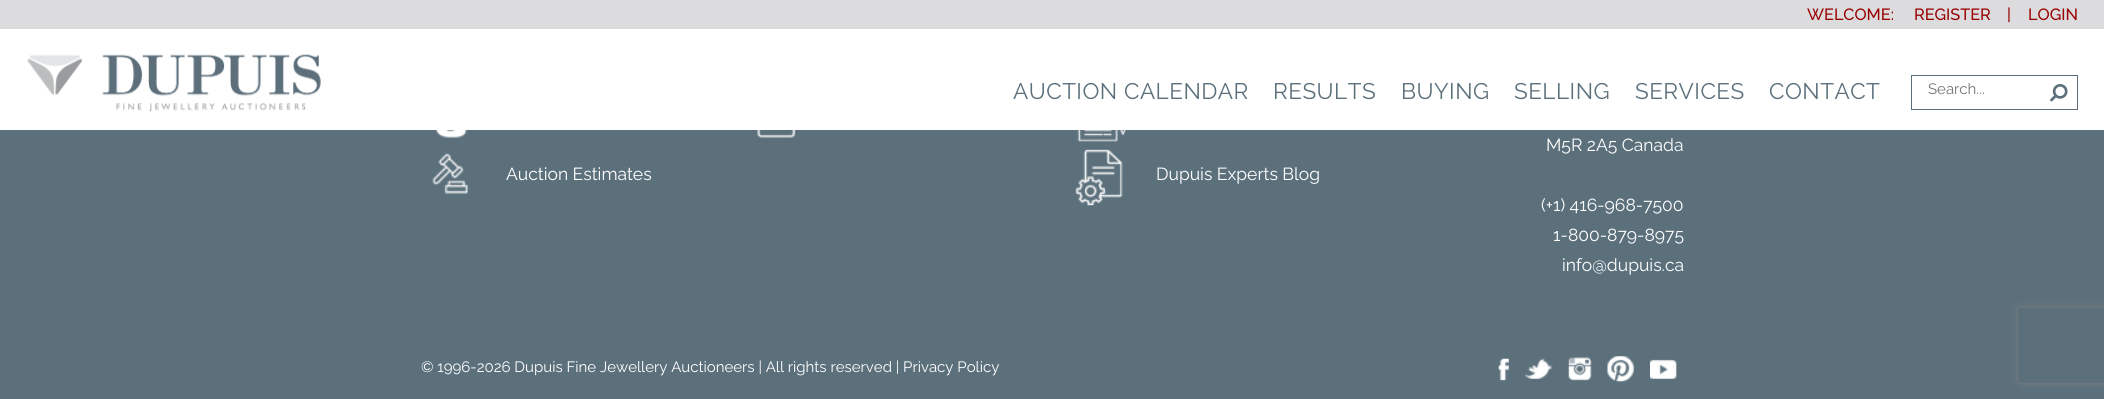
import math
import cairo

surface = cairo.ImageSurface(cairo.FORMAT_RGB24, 2104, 399)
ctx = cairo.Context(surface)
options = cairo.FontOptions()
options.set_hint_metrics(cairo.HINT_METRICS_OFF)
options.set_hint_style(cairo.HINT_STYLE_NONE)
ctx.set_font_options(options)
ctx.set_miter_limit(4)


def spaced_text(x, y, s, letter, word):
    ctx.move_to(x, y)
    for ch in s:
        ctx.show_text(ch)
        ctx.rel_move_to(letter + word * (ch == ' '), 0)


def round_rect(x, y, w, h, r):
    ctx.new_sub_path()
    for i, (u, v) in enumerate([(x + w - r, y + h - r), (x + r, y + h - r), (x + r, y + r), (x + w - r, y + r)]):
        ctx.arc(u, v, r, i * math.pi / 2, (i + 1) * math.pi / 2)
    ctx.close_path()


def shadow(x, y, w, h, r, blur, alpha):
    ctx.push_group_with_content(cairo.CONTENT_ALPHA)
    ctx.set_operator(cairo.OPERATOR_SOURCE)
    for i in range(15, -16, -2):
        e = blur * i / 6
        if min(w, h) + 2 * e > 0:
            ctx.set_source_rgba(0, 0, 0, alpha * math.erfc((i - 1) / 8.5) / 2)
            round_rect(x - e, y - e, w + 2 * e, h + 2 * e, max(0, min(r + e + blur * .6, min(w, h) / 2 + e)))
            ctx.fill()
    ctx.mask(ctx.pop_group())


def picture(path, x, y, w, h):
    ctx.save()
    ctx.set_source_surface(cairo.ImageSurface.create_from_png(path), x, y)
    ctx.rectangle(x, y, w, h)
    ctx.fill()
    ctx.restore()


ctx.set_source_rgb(0.361, 0.439, 0.486)
ctx.paint()
ctx.set_source_rgb(0.863, 0.863, 0.871)
ctx.rectangle(0, 0, 2104, 29)
ctx.fill()
ctx.select_font_face("Raleway Medium")
ctx.set_font_size(16.25)
ctx.set_source_rgb(0.6, 0, 0)
ctx.move_to(1807, 20)
ctx.show_text("WELCOME:")
ctx.move_to(1914, 20)
ctx.show_text("REGISTER")
ctx.move_to(2007, 20)
ctx.show_text("|")
ctx.move_to(2028, 20)
ctx.show_text("LOGIN")
ctx.set_source_rgb(1, 1, 1)
ctx.rectangle(0, 29, 2104, 101)
ctx.fill()
picture("img1.png", 27, 54, 294, 58)
ctx.select_font_face("Raleway")
ctx.set_font_size(22.5)
ctx.set_source_rgb(0.361, 0.439, 0.486)
spaced_text(1013, 99, "AUCTION CALENDAR", 0.5, 0)
spaced_text(1273, 99, "RESULTS", 0.5, 0)
spaced_text(1401, 99, "BUYING", 0.5, 0)
spaced_text(1514, 99, "SELLING", 0.5, 0)
spaced_text(1635, 99, "SERVICES", 0.5, 0)
spaced_text(1769, 99, "CONTACT", 0.5, 0)
ctx.rectangle(1911.5, 75.5, 166, 34)
ctx.set_line_width(1)
ctx.stroke()
ctx.set_font_size(15)
ctx.set_source_rgb(0.459, 0.459, 0.459)
ctx.move_to(1928, 94)
ctx.show_text("Search...")
picture("img2.png", 2050, 84, 18, 18)
picture("img3.png", 757, 130, 39, 8)
picture("img4.png", 436, 130, 31, 8)
picture("img5.png", 432, 153, 36, 41)
ctx.set_font_size(17.5)
ctx.set_source_rgb(1, 1, 1)
ctx.move_to(506, 180)
ctx.show_text("Auction Estimates")
picture("img6.png", 1077, 130, 50, 12)
picture("img7.png", 1075, 149, 48, 57)
ctx.move_to(1156, 180)
ctx.show_text("Dupuis Experts Blog")
ctx.move_to(1546, 151)
ctx.show_text("M5R 2A5 Canada")
ctx.move_to(1541, 211)
ctx.show_text("(+1) 416-968-7500")
ctx.move_to(1553, 241)
ctx.show_text("1-800-879-8975")
ctx.move_to(1562, 271)
ctx.show_text("info@dupuis.ca")
ctx.set_font_size(15)
ctx.move_to(421, 372)
ctx.show_text("© 1996-2026 Dupuis Fine Jewellery Auctioneers | All rights reserved | Privacy Policy")
picture("img8.png", 1498, 358, 11, 23)
picture("img9.png", 1525, 358, 28, 21)
picture("img10.png", 1568, 357, 24, 24)
picture("img11.png", 1607, 356, 27, 26)
picture("img12.png", 1650, 359, 27, 20)
ctx.save()
ctx.set_fill_rule(cairo.FILL_RULE_EVEN_ODD)
ctx.new_path()
ctx.move_to(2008, 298)
ctx.line_to(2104, 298)
ctx.line_to(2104, 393)
ctx.line_to(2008, 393)
ctx.close_path()
ctx.move_to(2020.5, 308)
ctx.line_to(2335.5, 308)
ctx.curve_to(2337, 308, 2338, 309, 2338, 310.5)
ctx.line_to(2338, 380.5)
ctx.curve_to(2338, 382, 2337, 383, 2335.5, 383)
ctx.line_to(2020.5, 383)
ctx.curve_to(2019, 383, 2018, 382, 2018, 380.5)
ctx.line_to(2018, 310.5)
ctx.curve_to(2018, 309, 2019, 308, 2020.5, 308)
ctx.close_path()
ctx.clip()
ctx.set_source_rgb(0.502, 0.502, 0.502)
shadow(2018, 308, 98, 75, 2.5, 3, 1)
ctx.restore()
surface.write_to_png("page.png")
